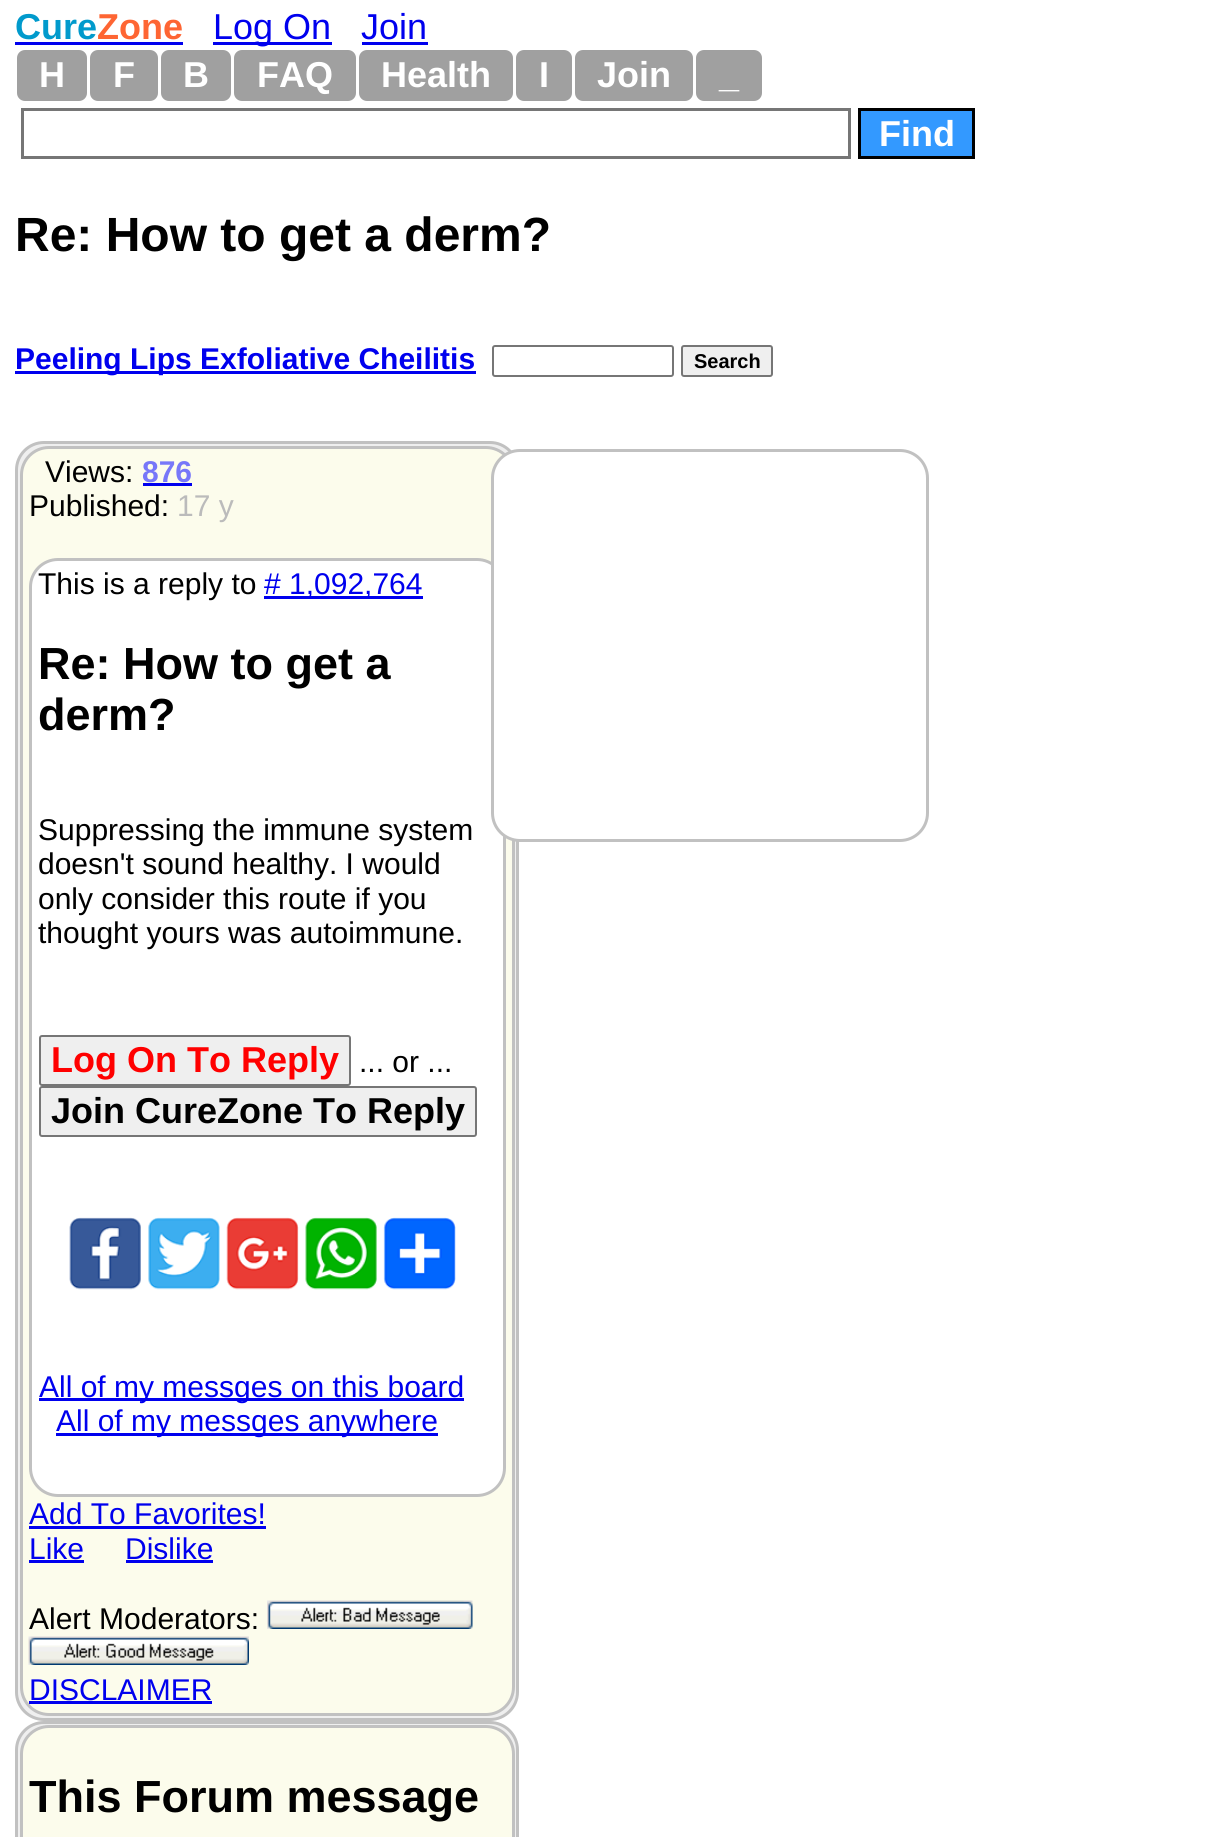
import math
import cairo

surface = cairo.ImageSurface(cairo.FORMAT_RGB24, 1210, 1837)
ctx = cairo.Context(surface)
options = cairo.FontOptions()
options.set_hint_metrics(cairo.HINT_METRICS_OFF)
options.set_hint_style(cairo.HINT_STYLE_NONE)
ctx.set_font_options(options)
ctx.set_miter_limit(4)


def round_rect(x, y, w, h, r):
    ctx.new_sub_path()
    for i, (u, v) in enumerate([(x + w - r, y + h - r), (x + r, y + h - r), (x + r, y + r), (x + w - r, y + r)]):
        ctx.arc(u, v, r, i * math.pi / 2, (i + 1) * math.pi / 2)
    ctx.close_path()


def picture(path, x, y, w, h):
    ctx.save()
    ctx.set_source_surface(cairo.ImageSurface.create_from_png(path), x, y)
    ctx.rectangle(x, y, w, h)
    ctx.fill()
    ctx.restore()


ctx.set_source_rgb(1, 1, 1)
ctx.paint()
ctx.select_font_face("Liberation Sans", cairo.FONT_SLANT_NORMAL, cairo.FONT_WEIGHT_BOLD)
ctx.set_font_size(36)
ctx.set_source_rgb(0.004, 0.604, 0.8)
ctx.move_to(15, 39)
ctx.show_text("Cure")
ctx.set_source_rgb(0.996, 0.396, 0.2)
ctx.move_to(97, 39)
ctx.show_text("Zone")
ctx.set_source_rgb(0, 0, 0.933)
ctx.rectangle(15, 42, 168, 3)
ctx.fill()
ctx.rectangle(213, 42, 119, 3)
ctx.fill()
ctx.select_font_face("Liberation Sans")
ctx.move_to(213, 39)
ctx.show_text("Log On")
ctx.move_to(361, 39)
ctx.show_text("Join")
ctx.rectangle(362, 42, 66, 3)
ctx.fill()
ctx.set_source_rgb(0.627, 0.627, 0.627)
round_rect(17, 50, 70, 51, 8)
ctx.fill()
ctx.select_font_face("Liberation Sans", cairo.FONT_SLANT_NORMAL, cairo.FONT_WEIGHT_BOLD)
ctx.set_source_rgb(1, 1, 1)
ctx.move_to(39, 87)
ctx.show_text("H")
ctx.set_source_rgb(0.627, 0.627, 0.627)
round_rect(90, 50, 68, 51, 8)
ctx.fill()
ctx.set_source_rgb(1, 1, 1)
ctx.move_to(113, 87)
ctx.show_text("F")
ctx.set_source_rgb(0.627, 0.627, 0.627)
round_rect(161, 50, 70, 51, 8)
ctx.fill()
ctx.set_source_rgb(1, 1, 1)
ctx.move_to(183, 87)
ctx.show_text("B")
ctx.set_source_rgb(0.627, 0.627, 0.627)
round_rect(234, 50, 122, 51, 8)
ctx.fill()
ctx.set_source_rgb(1, 1, 1)
ctx.move_to(257, 87)
ctx.show_text("FAQ")
ctx.set_source_rgb(0.627, 0.627, 0.627)
round_rect(359, 50, 154, 51, 8)
ctx.fill()
ctx.set_source_rgb(1, 1, 1)
ctx.move_to(381, 87)
ctx.show_text("Health")
ctx.set_source_rgb(0.627, 0.627, 0.627)
round_rect(516, 50, 56, 51, 8)
ctx.fill()
ctx.set_source_rgb(1, 1, 1)
ctx.move_to(539, 87)
ctx.show_text("I")
ctx.set_source_rgb(0.627, 0.627, 0.627)
round_rect(575, 50, 118, 51, 8)
ctx.fill()
ctx.set_source_rgb(1, 1, 1)
ctx.move_to(597, 87)
ctx.show_text("Join")
ctx.set_source_rgb(0.627, 0.627, 0.627)
round_rect(696, 50, 66, 51, 8)
ctx.fill()
ctx.set_source_rgb(1, 1, 1)
ctx.move_to(719, 87)
ctx.show_text("_")
ctx.rectangle(22.5, 109.5, 827, 48)
ctx.set_source_rgb(0.463, 0.463, 0.463)
ctx.set_line_width(3)
ctx.stroke()
ctx.set_source_rgb(0.2, 0.6, 1)
ctx.rectangle(859.5, 109.5, 114, 48)
ctx.fill_preserve()
ctx.set_source_rgb(0, 0, 0)
ctx.stroke()
ctx.set_source_rgb(1, 1, 1)
ctx.move_to(879, 146)
ctx.show_text("Find")
ctx.set_font_size(48)
ctx.set_source_rgb(0, 0, 0)
ctx.move_to(15, 251)
ctx.show_text("Re: How to get a derm?")
ctx.set_source_rgb(0, 0, 0.933)
ctx.rectangle(15, 371, 461, 3)
ctx.fill()
ctx.set_font_size(30)
ctx.move_to(15, 369)
ctx.show_text("Peeling Lips Exfoliative Cheilitis")
round_rect(493, 346, 180, 30, 2)
ctx.set_source_rgb(0.463, 0.463, 0.463)
ctx.set_line_width(2)
ctx.stroke()
ctx.set_source_rgb(0.937, 0.937, 0.937)
round_rect(682, 346, 90, 30, 2)
ctx.fill_preserve()
ctx.set_source_rgb(0.463, 0.463, 0.463)
ctx.stroke()
ctx.set_font_size(20)
ctx.set_source_rgb(0, 0, 0)
ctx.move_to(694, 368)
ctx.show_text("Search")
ctx.set_source_rgb(0.937, 0.937, 0.937)
round_rect(16.5, 442.5, 501, 1277, 27.5)
ctx.fill_preserve()
ctx.set_source_rgb(0.757, 0.757, 0.757)
ctx.set_line_width(3)
ctx.stroke()
ctx.set_source_rgb(0.988, 0.988, 0.925)
round_rect(21.5, 447.5, 492, 1267, 27.5)
ctx.fill_preserve()
ctx.set_source_rgb(0.757, 0.757, 0.757)
ctx.stroke()
ctx.select_font_face("Liberation Sans")
ctx.set_font_size(30)
ctx.set_source_rgb(0, 0, 0)
ctx.move_to(45, 482)
ctx.show_text("Views:")
ctx.select_font_face("Liberation Sans", cairo.FONT_SLANT_NORMAL, cairo.FONT_WEIGHT_BOLD)
ctx.set_source_rgb(0.467, 0.467, 0.976)
ctx.move_to(142, 482)
ctx.show_text("876")
ctx.set_source_rgb(0, 0, 0.933)
ctx.rectangle(143, 483, 49, 3)
ctx.fill()
ctx.select_font_face("Liberation Sans")
ctx.set_source_rgb(0, 0, 0)
ctx.move_to(29, 516)
ctx.show_text("Published:")
ctx.set_source_rgb(0.733, 0.733, 0.733)
ctx.move_to(177, 516)
ctx.show_text("17 y")
ctx.set_source_rgb(1, 1, 1)
round_rect(30.5, 559.5, 474, 936, 27.5)
ctx.fill_preserve()
ctx.set_source_rgb(0.757, 0.757, 0.757)
ctx.stroke()
ctx.set_source_rgb(0, 0, 0)
ctx.move_to(38, 594)
ctx.show_text("This is a reply to")
ctx.set_source_rgb(0, 0, 0.933)
ctx.rectangle(264, 596, 159, 3)
ctx.fill()
ctx.move_to(264, 594)
ctx.show_text("# 1,092,764")
ctx.select_font_face("Liberation Sans", cairo.FONT_SLANT_NORMAL, cairo.FONT_WEIGHT_BOLD)
ctx.set_font_size(45)
ctx.set_source_rgb(0, 0, 0)
ctx.move_to(38, 679)
ctx.show_text("Re: How to get a")
ctx.move_to(38, 730)
ctx.show_text("derm?")
ctx.select_font_face("Liberation Sans")
ctx.set_font_size(30)
ctx.move_to(38, 840)
ctx.show_text("Suppressing the immune system")
ctx.move_to(38, 874)
ctx.show_text("doesn't sound healthy. I would")
ctx.move_to(38, 909)
ctx.show_text("only consider this route if you")
ctx.move_to(38, 943)
ctx.show_text("thought yours was autoimmune.")
ctx.set_source_rgb(0.937, 0.937, 0.937)
round_rect(40, 1036, 310, 49, 2)
ctx.fill_preserve()
ctx.set_source_rgb(0.463, 0.463, 0.463)
ctx.set_line_width(2)
ctx.stroke()
ctx.select_font_face("Liberation Sans", cairo.FONT_SLANT_NORMAL, cairo.FONT_WEIGHT_BOLD)
ctx.set_font_size(36)
ctx.set_source_rgb(1, 0, 0)
ctx.move_to(51, 1072)
ctx.show_text("Log On To Reply")
ctx.select_font_face("Liberation Sans")
ctx.set_font_size(30)
ctx.set_source_rgb(0, 0, 0)
ctx.move_to(359, 1072)
ctx.show_text("... or ...")
ctx.set_source_rgb(0.937, 0.937, 0.937)
round_rect(40, 1087, 436, 49, 2)
ctx.fill_preserve()
ctx.set_source_rgb(0.463, 0.463, 0.463)
ctx.stroke()
ctx.select_font_face("Liberation Sans", cairo.FONT_SLANT_NORMAL, cairo.FONT_WEIGHT_BOLD)
ctx.set_font_size(36)
ctx.set_source_rgb(0, 0, 0)
ctx.move_to(51, 1123)
ctx.show_text("Join CureZone To Reply")
picture("img1.png", 69, 1217, 387, 73)
ctx.set_source_rgb(0, 0, 0.933)
ctx.rectangle(39, 1398, 425, 3)
ctx.fill()
ctx.select_font_face("Liberation Sans")
ctx.set_font_size(30)
ctx.move_to(39, 1397)
ctx.show_text("All of my messges on this board")
ctx.rectangle(56, 1433, 382, 3)
ctx.fill()
ctx.move_to(56, 1431)
ctx.show_text("All of my messges anywhere")
ctx.move_to(29, 1524)
ctx.show_text("Add To Favorites!")
ctx.rectangle(29, 1526, 237, 3)
ctx.fill()
ctx.move_to(29, 1559)
ctx.show_text("Like")
ctx.rectangle(29, 1560, 55, 3)
ctx.fill()
ctx.move_to(125, 1559)
ctx.show_text("Dislike")
ctx.rectangle(126, 1560, 87, 3)
ctx.fill()
ctx.set_source_rgb(0, 0, 0)
ctx.move_to(29, 1629)
ctx.show_text("Alert Moderators:")
picture("img2.png", 267, 1600, 206, 29)
picture("img3.png", 28, 1636, 221, 29)
ctx.set_source_rgb(0, 0, 0.933)
ctx.move_to(29, 1700)
ctx.show_text("DISCLAIMER")
ctx.rectangle(29, 1701, 183, 3)
ctx.fill()
ctx.set_source_rgb(1, 1, 1)
round_rect(492.5, 450.5, 435, 390, 27.5)
ctx.fill_preserve()
ctx.set_source_rgb(0.757, 0.757, 0.757)
ctx.set_line_width(3)
ctx.stroke()
ctx.set_source_rgb(0.937, 0.937, 0.937)
round_rect(16.5, 1722.5, 501, 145, 27.5)
ctx.fill_preserve()
ctx.set_source_rgb(0.757, 0.757, 0.757)
ctx.stroke()
ctx.set_source_rgb(0.988, 0.988, 0.925)
round_rect(21.5, 1726.5, 492, 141, 27.5)
ctx.fill_preserve()
ctx.set_source_rgb(0.757, 0.757, 0.757)
ctx.stroke()
ctx.select_font_face("Liberation Sans", cairo.FONT_SLANT_NORMAL, cairo.FONT_WEIGHT_BOLD)
ctx.set_font_size(45)
ctx.set_source_rgb(0, 0, 0)
ctx.move_to(29, 1812)
ctx.show_text("This Forum message")
surface.write_to_png("page.png")
